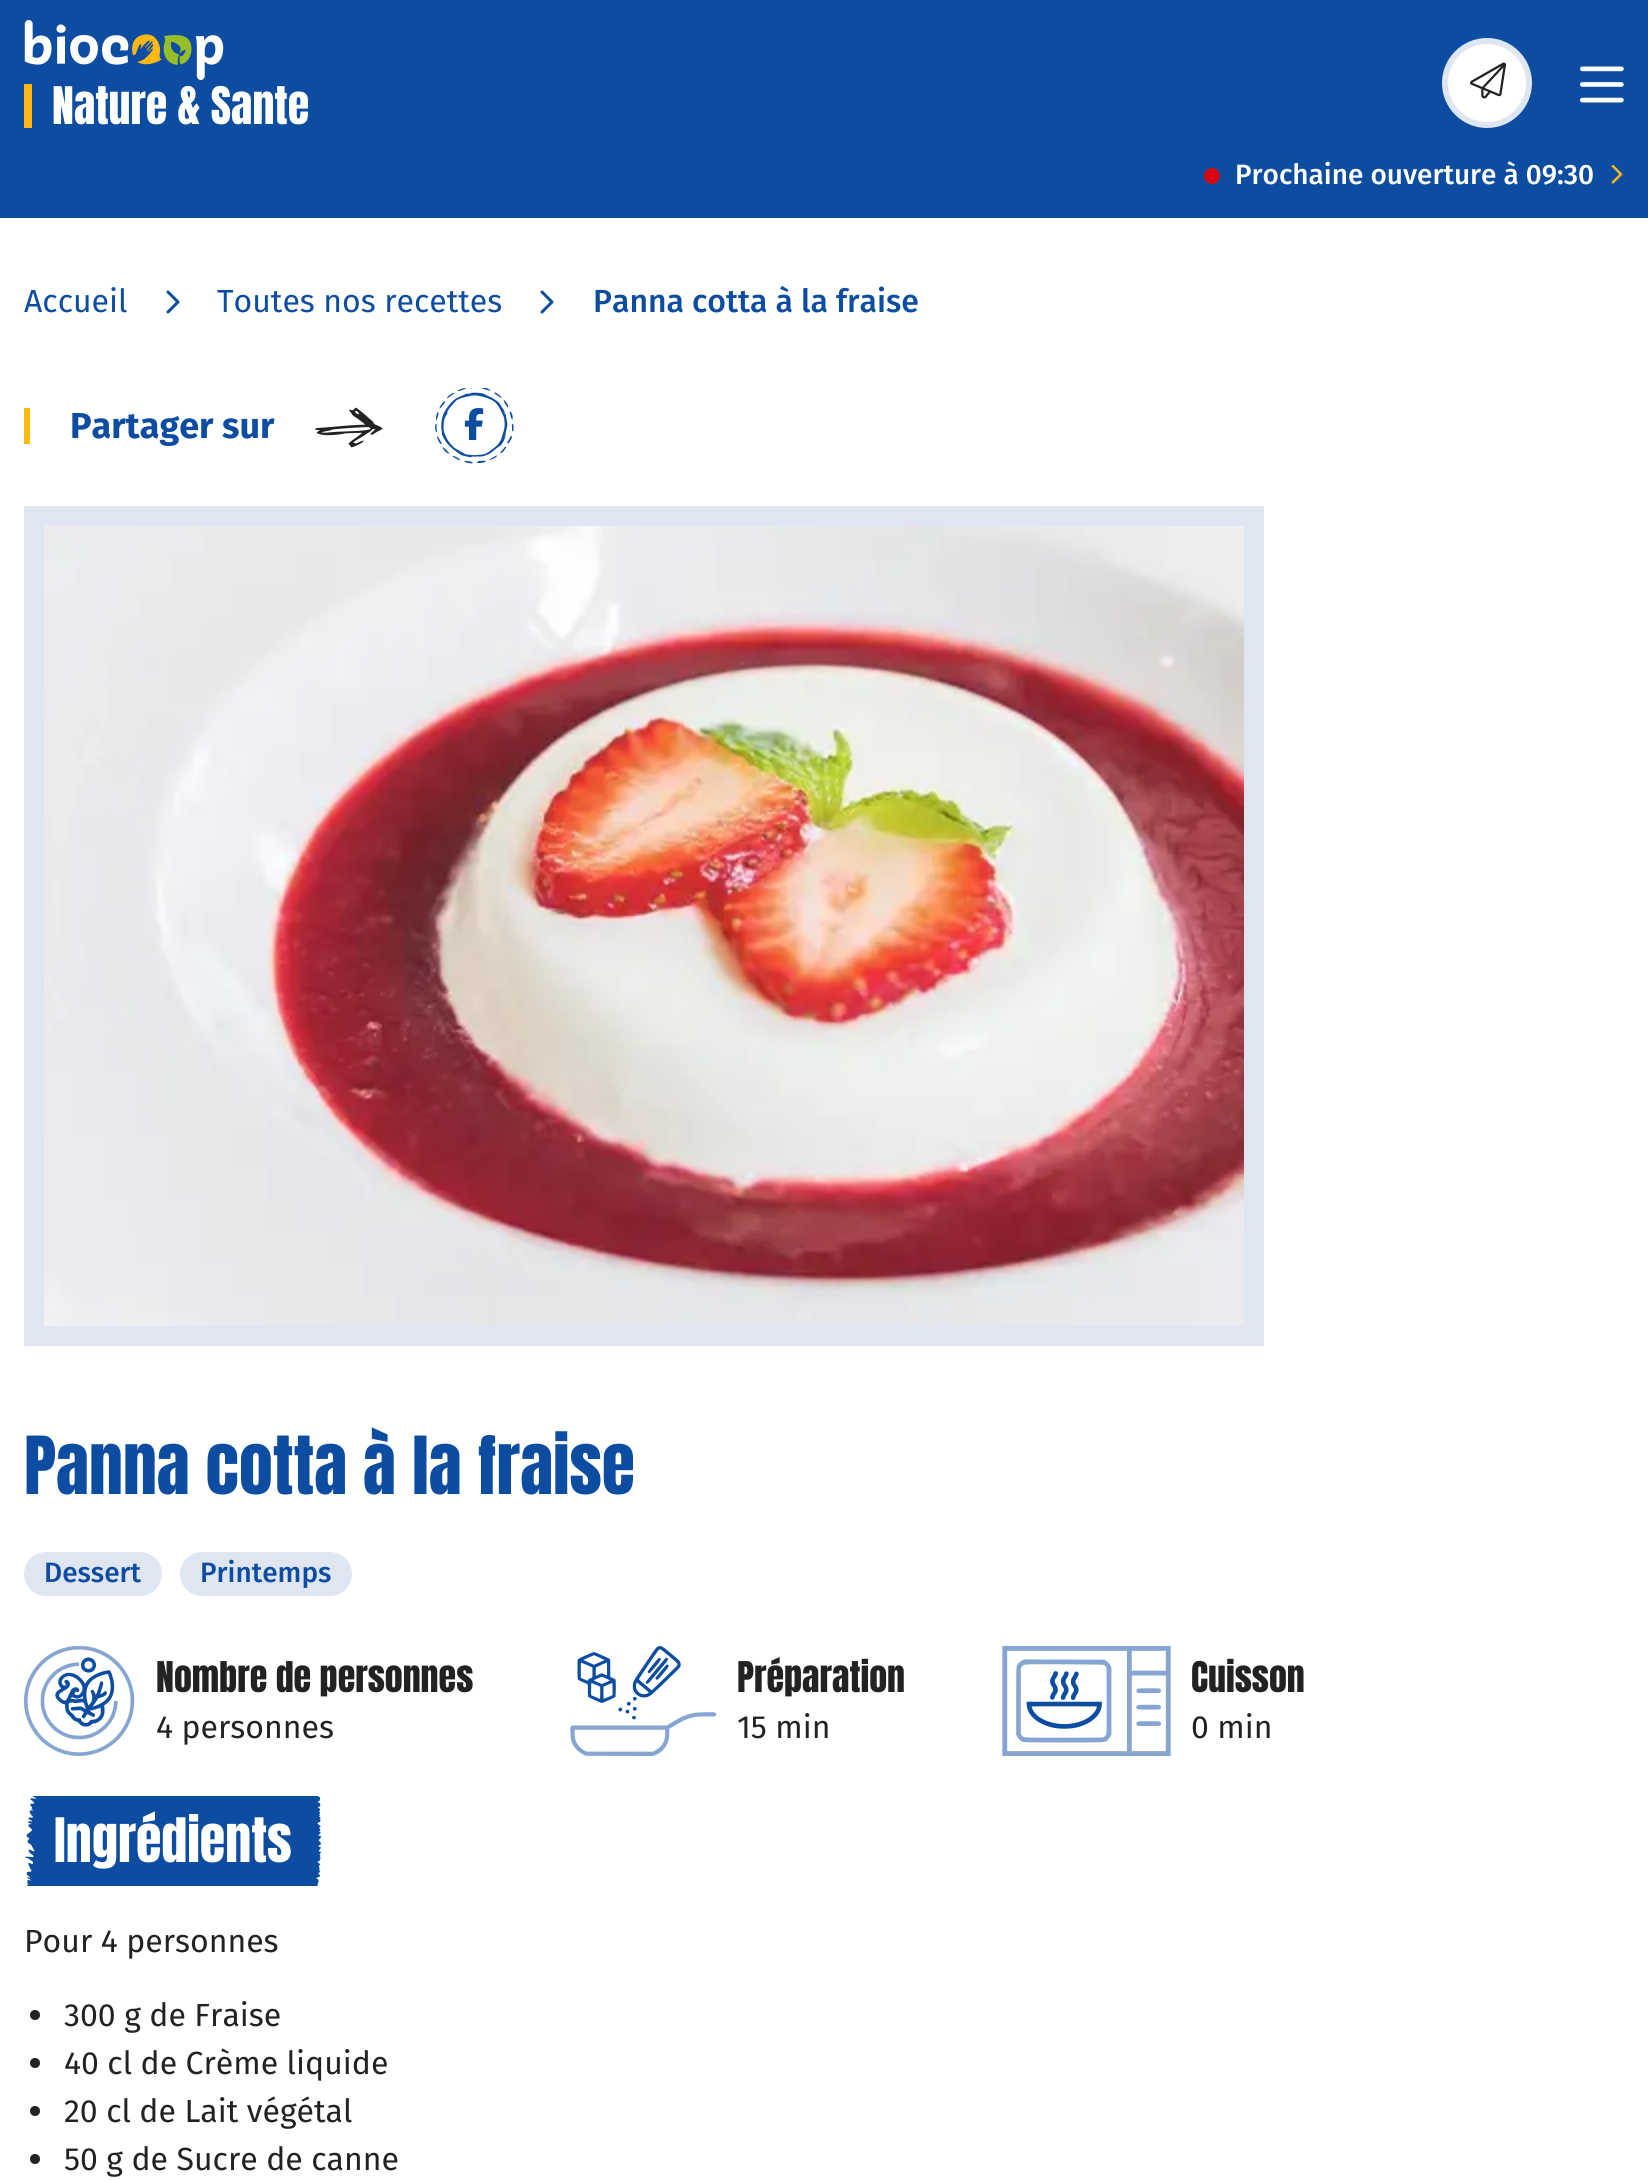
import math
import cairo

surface = cairo.ImageSurface(cairo.FORMAT_RGB24, 1648, 2180)
ctx = cairo.Context(surface)
options = cairo.FontOptions()
options.set_hint_metrics(cairo.HINT_METRICS_OFF)
options.set_hint_style(cairo.HINT_STYLE_NONE)
ctx.set_font_options(options)
ctx.set_miter_limit(4)


def round_rect(x, y, w, h, r):
    ctx.new_sub_path()
    for i, (u, v) in enumerate([(x + w - r, y + h - r), (x + r, y + h - r), (x + r, y + r), (x + w - r, y + r)]):
        ctx.arc(u, v, r, i * math.pi / 2, (i + 1) * math.pi / 2)
    ctx.close_path()


def picture(path, x, y, w, h):
    ctx.save()
    ctx.set_source_surface(cairo.ImageSurface.create_from_png(path), x, y)
    ctx.rectangle(x, y, w, h)
    ctx.fill()
    ctx.restore()


ctx.set_source_rgb(1, 1, 1)
ctx.paint()
ctx.set_source_rgb(0.047, 0.302, 0.635)
ctx.rectangle(0, 0, 1648, 218)
ctx.fill()
picture("img1.png", 24, 20, 200, 60)
ctx.set_source_rgb(0.992, 0.722, 0.075)
ctx.rectangle(24, 84, 8, 44)
ctx.fill()
ctx.select_font_face("Anton")
ctx.set_font_size(44)
ctx.set_source_rgb(1, 1, 1)
ctx.move_to(52, 124)
ctx.show_text("Nature & Sante")
ctx.new_path()
ctx.arc(1487, 83, 42, 0, 2 * math.pi)
ctx.fill_preserve()
ctx.set_source_rgb(0.875, 0.898, 0.945)
ctx.set_line_width(6)
ctx.stroke()
picture("img2.png", 1470, 62, 36, 37)
picture("img3.png", 1580, 66, 44, 37)
ctx.set_source_rgb(0.855, 0.031, 0.071)
ctx.arc(1212, 176, 8, 0, 2 * math.pi)
ctx.fill()
ctx.select_font_face("Fira Sans Medium")
ctx.set_font_size(28)
ctx.set_source_rgb(1, 1, 1)
ctx.move_to(1235, 184)
ctx.show_text("Prochaine ouverture à 09:30")
picture("img4.png", 1611, 164, 12, 20)
ctx.select_font_face("Fira Sans")
ctx.set_font_size(32)
ctx.set_source_rgb(0.047, 0.302, 0.635)
ctx.move_to(24, 312)
ctx.show_text("Accueil")
picture("img5.png", 166, 290, 14, 24)
ctx.move_to(217, 312)
ctx.show_text("Toutes nos recettes")
picture("img5.png", 540, 290, 14, 24)
ctx.select_font_face("Fira Sans Medium")
ctx.move_to(593, 312)
ctx.show_text("Panna cotta à la fraise")
ctx.set_source_rgb(0.992, 0.722, 0.075)
ctx.rectangle(24, 408, 6, 36)
ctx.fill()
ctx.select_font_face("Fira Sans", cairo.FONT_SLANT_NORMAL, cairo.FONT_WEIGHT_BOLD)
ctx.set_font_size(36)
ctx.set_source_rgb(0.047, 0.302, 0.635)
ctx.move_to(70, 438)
ctx.show_text("Partager sur")
picture("img6.png", 314, 407, 69, 41)
picture("img7.png", 435, 388, 79, 76)
picture("img8.png", 464, 408, 20, 32)
ctx.rectangle(34, 516, 1220, 820)
ctx.set_source_rgb(0.875, 0.898, 0.945)
ctx.set_line_width(20)
ctx.stroke()
picture("img9.png", 44, 526, 1200, 800)
ctx.select_font_face("Anton")
ctx.set_font_size(68)
ctx.set_source_rgb(0.047, 0.302, 0.635)
ctx.move_to(24, 1494)
ctx.show_text("Panna cotta à la fraise")
ctx.set_source_rgb(0.875, 0.898, 0.945)
round_rect(24, 1552, 138, 44, 22)
ctx.fill()
ctx.select_font_face("Fira Sans Medium")
ctx.set_font_size(28)
ctx.set_source_rgb(0.047, 0.302, 0.635)
ctx.move_to(44, 1582)
ctx.show_text("Dessert")
ctx.set_source_rgb(0.875, 0.898, 0.945)
round_rect(180, 1552, 172, 44, 22)
ctx.fill()
ctx.set_source_rgb(0.047, 0.302, 0.635)
ctx.move_to(200, 1582)
ctx.show_text("Printemps")
picture("img10.png", 24, 1646, 111, 110)
ctx.select_font_face("Anton")
ctx.set_font_size(36)
ctx.set_source_rgb(0.133, 0.133, 0.133)
ctx.move_to(156, 1692)
ctx.show_text("Nombre de personnes")
ctx.select_font_face("Fira Sans")
ctx.set_font_size(32)
ctx.move_to(156, 1738)
ctx.show_text("4 personnes")
picture("img11.png", 570, 1646, 147, 110)
ctx.select_font_face("Anton")
ctx.set_font_size(36)
ctx.move_to(737, 1692)
ctx.show_text("Préparation")
ctx.select_font_face("Fira Sans")
ctx.set_font_size(32)
ctx.move_to(737, 1738)
ctx.show_text("15 min")
picture("img12.png", 1002, 1646, 169, 110)
ctx.select_font_face("Anton")
ctx.set_font_size(36)
ctx.move_to(1191, 1692)
ctx.show_text("Cuisson")
ctx.select_font_face("Fira Sans")
ctx.set_font_size(32)
ctx.move_to(1191, 1738)
ctx.show_text("0 min")
picture("img13.png", 24, 1796, 297, 90)
ctx.select_font_face("Anton")
ctx.set_font_size(52)
ctx.set_source_rgb(1, 1, 1)
ctx.move_to(54, 1862)
ctx.show_text("Ingrédients")
ctx.select_font_face("Fira Sans")
ctx.set_font_size(32)
ctx.set_source_rgb(0.133, 0.133, 0.133)
ctx.move_to(24, 1952)
ctx.show_text("Pour 4 personnes")
ctx.new_path()
ctx.arc(35, 2015, 5, 0, 2 * math.pi)
ctx.fill()
ctx.move_to(64, 2026)
ctx.show_text("300 g de Fraise")
ctx.new_path()
ctx.arc(35, 2063, 5, 0, 2 * math.pi)
ctx.fill()
ctx.move_to(64, 2074)
ctx.show_text("40 cl de Crème liquide")
ctx.new_path()
ctx.arc(35, 2111, 5, 0, 2 * math.pi)
ctx.fill()
ctx.move_to(64, 2122)
ctx.show_text("20 cl de Lait végétal")
ctx.new_path()
ctx.arc(35, 2159, 5, 0, 2 * math.pi)
ctx.fill()
ctx.move_to(64, 2170)
ctx.show_text("50 g de Sucre de canne")
surface.write_to_png("page.png")
